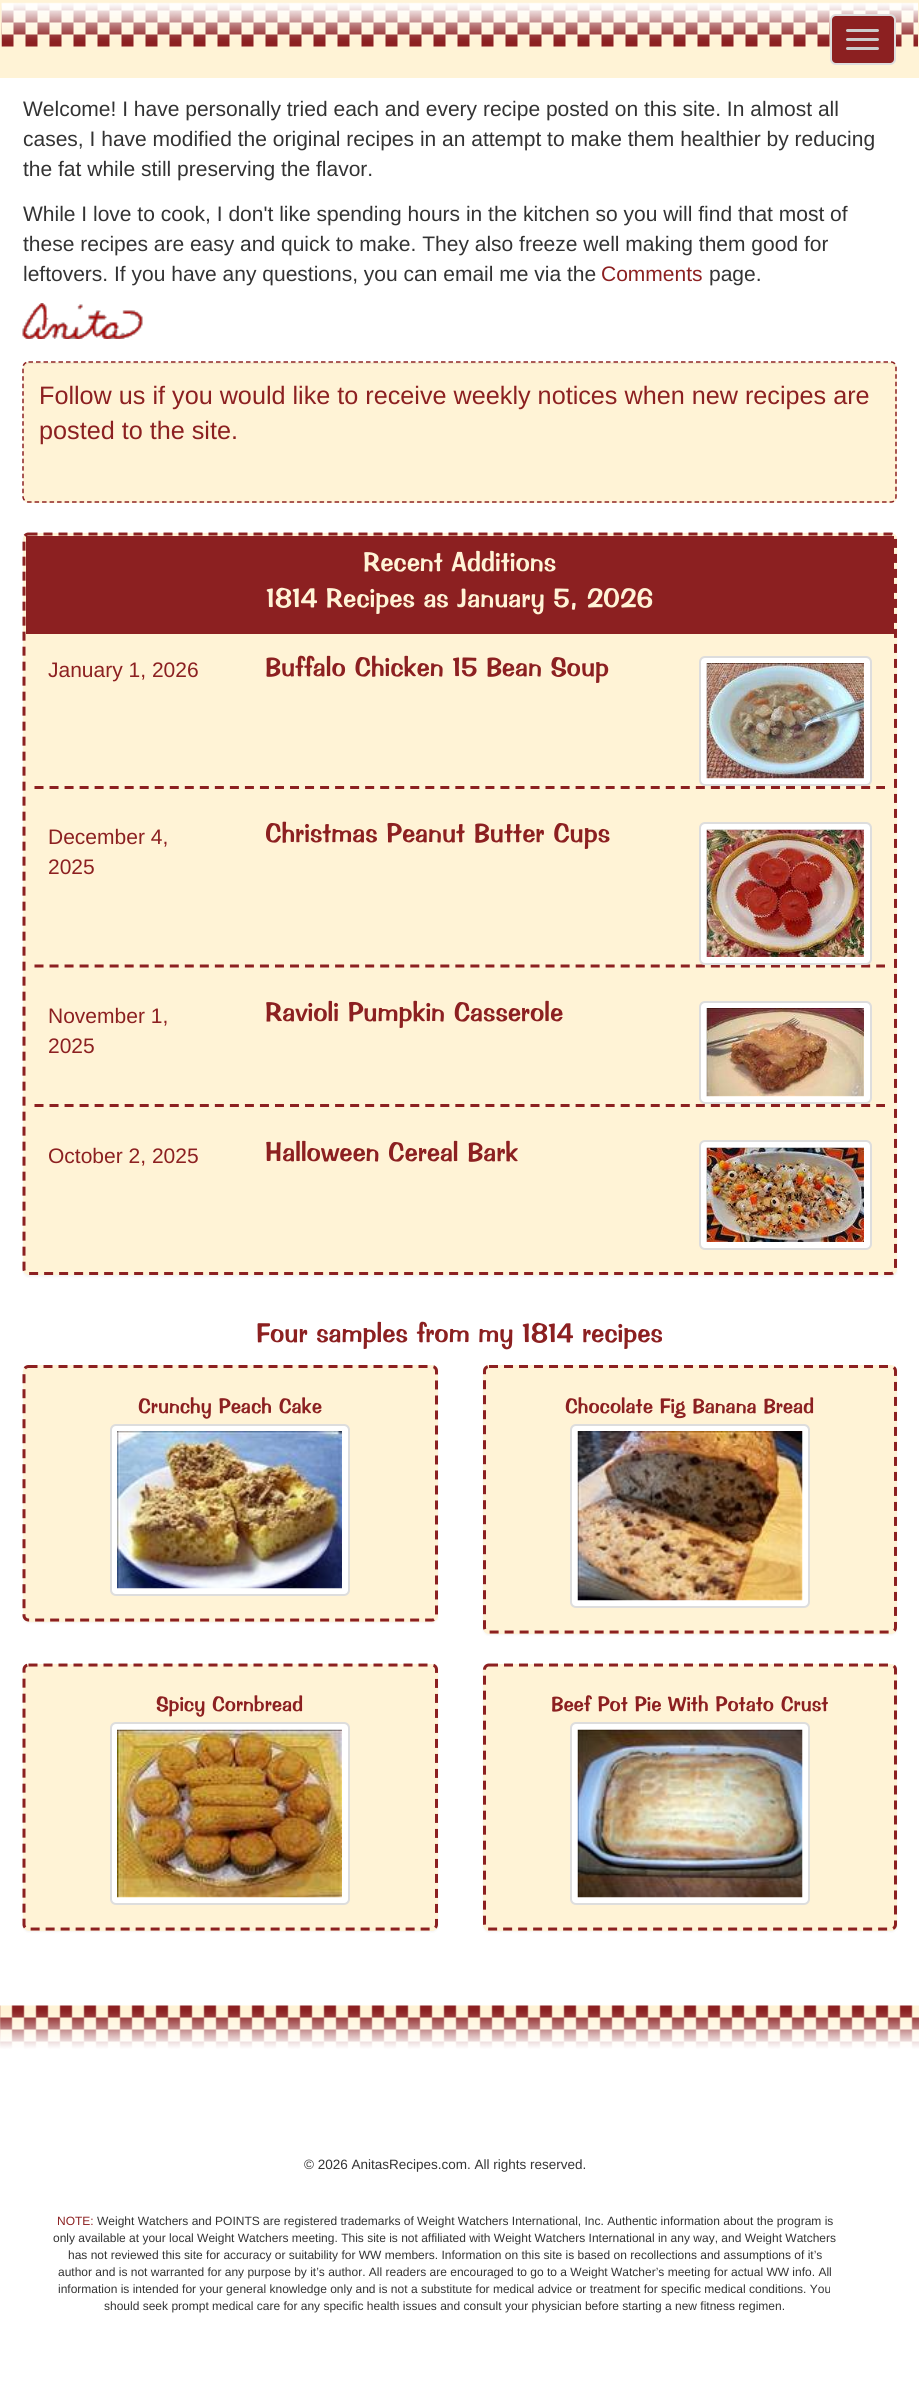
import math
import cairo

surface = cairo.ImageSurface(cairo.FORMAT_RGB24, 919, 2407)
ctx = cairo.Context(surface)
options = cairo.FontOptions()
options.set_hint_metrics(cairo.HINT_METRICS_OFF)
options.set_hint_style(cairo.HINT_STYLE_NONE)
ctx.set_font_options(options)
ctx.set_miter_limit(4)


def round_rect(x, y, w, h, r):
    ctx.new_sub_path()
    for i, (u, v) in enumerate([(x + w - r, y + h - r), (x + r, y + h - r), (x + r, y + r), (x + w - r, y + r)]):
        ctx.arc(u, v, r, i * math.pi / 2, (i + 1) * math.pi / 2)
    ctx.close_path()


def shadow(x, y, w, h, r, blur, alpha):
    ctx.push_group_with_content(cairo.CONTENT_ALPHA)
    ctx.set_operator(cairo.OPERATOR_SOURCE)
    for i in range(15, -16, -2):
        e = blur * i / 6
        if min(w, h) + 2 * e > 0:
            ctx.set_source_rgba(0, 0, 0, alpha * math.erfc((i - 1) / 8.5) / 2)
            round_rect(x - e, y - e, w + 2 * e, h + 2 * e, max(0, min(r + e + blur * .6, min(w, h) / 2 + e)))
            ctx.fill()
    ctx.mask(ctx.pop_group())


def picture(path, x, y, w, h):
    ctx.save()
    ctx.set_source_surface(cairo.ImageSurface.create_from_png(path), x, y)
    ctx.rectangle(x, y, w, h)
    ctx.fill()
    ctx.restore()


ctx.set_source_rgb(1, 1, 1)
ctx.paint()
ctx.set_source_rgb(1, 0.953, 0.839)
ctx.rectangle(0, 0, 919, 78)
ctx.fill()
picture("img1.png", 1, 2, 917, 45)
ctx.set_source_rgb(0.549, 0.125, 0.129)
round_rect(831, 15, 64, 49, 5)
ctx.fill_preserve()
ctx.set_source_rgb(0.867, 0.867, 0.867)
ctx.stroke()
ctx.set_source_rgb(0.8, 0.8, 0.8)
round_rect(846, 29, 33, 3, 1.5)
ctx.fill()
round_rect(846, 38, 33, 3, 1.5)
ctx.fill()
round_rect(846, 47, 33, 3, 1.5)
ctx.fill()
ctx.select_font_face("Liberation Sans")
ctx.set_font_size(21)
ctx.set_source_rgb(0.2, 0.2, 0.2)
ctx.move_to(23, 116)
ctx.show_text("Welcome! I have personally tried each and every recipe posted on this site. In almost all")
ctx.move_to(23, 146)
ctx.show_text("cases, I have modified the original recipes in an attempt to make them healthier by reducing")
ctx.move_to(23, 176)
ctx.show_text("the fat while still preserving the flavor.")
ctx.move_to(23, 221)
ctx.show_text("While I love to cook, I don't like spending hours in the kitchen so you will find that most of")
ctx.move_to(23, 251)
ctx.show_text("these recipes are easy and quick to make. They also freeze well making them good for")
ctx.move_to(23, 281)
ctx.show_text("leftovers. If you have any questions, you can email me via the")
ctx.set_source_rgb(0.549, 0.125, 0.129)
ctx.move_to(601, 281)
ctx.show_text("Comments")
ctx.set_source_rgb(0.2, 0.2, 0.2)
ctx.move_to(709, 281)
ctx.show_text("page.")
picture("img2.png", 22, 303, 121, 36)
ctx.set_source_rgb(1, 0.953, 0.839)
round_rect(23, 362, 874, 141, 6)
ctx.fill()
ctx.set_source_rgb(0.949, 0.906, 0.796)
ctx.new_path()
ctx.move_to(28, 364)
ctx.line_to(891, 364)
ctx.curve_to(893, 364, 896, 367, 896, 369)
ctx.line_to(896, 368)
ctx.curve_to(896, 365, 894, 363, 891, 363)
ctx.line_to(29, 363)
ctx.curve_to(26, 363, 24, 365, 24, 368)
ctx.line_to(24, 369)
ctx.curve_to(24, 367, 26, 364, 28, 364)
ctx.close_path()
ctx.fill()
ctx.new_path()
ctx.move_to(28.5, 362)
ctx.line_to(891, 362)
ctx.curve_to(894, 362, 896, 364.5, 896, 367.5)
ctx.line_to(896, 496.5)
ctx.curve_to(896, 499.5, 894, 502, 891, 502)
ctx.line_to(28.5, 502)
ctx.curve_to(25.5, 502, 23, 499.5, 23, 496.5)
ctx.line_to(23, 367.5)
ctx.curve_to(23, 364.5, 25.5, 362, 28.5, 362)
ctx.close_path()
ctx.set_source_rgb(0.549, 0.125, 0.129)
ctx.set_line_width(1.5)
ctx.set_dash([4.5, 3])
ctx.stroke()
ctx.set_font_size(25.2)
ctx.move_to(39, 404)
ctx.show_text("Follow us if you would like to receive weekly notices when new recipes are")
ctx.move_to(39, 439)
ctx.show_text("posted to the site.")
ctx.set_source_rgb(0, 0, 0)
shadow(23, 534, 874, 743, 6, 1, 0.05)
ctx.set_source_rgb(1, 0.953, 0.839)
round_rect(23, 533, 874, 742, 6)
ctx.fill()
ctx.new_path()
ctx.move_to(28.5, 534)
ctx.line_to(891, 534)
ctx.curve_to(893.5, 534, 895.5, 536, 895.5, 538.5)
ctx.line_to(895.5, 1269)
ctx.curve_to(895.5, 1271.5, 893.5, 1273.5, 891, 1273.5)
ctx.line_to(28.5, 1273.5)
ctx.curve_to(26, 1273.5, 24, 1271.5, 24, 1269)
ctx.line_to(24, 538.5)
ctx.curve_to(24, 536, 26, 534, 28.5, 534)
ctx.close_path()
ctx.set_source_rgb(0.549, 0.125, 0.129)
ctx.set_line_width(3)
ctx.set_dash([9, 6])
ctx.stroke()
ctx.rectangle(26, 536, 868, 98)
ctx.fill()
ctx.select_font_face("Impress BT")
ctx.set_font_size(27)
ctx.set_source_rgb(1, 0.953, 0.839)
ctx.move_to(363, 571)
ctx.show_text("Recent Additions")
ctx.move_to(266, 607)
ctx.show_text("1814 Recipes as January 5, 2026")
ctx.select_font_face("Liberation Sans")
ctx.set_font_size(21)
ctx.set_source_rgb(0.549, 0.125, 0.129)
ctx.move_to(48, 677)
ctx.show_text("January 1, 2026")
ctx.select_font_face("Impress BT")
ctx.set_font_size(27)
ctx.move_to(265, 676)
ctx.show_text("Buffalo Chicken 15 Bean Soup")
ctx.set_source_rgb(1, 1, 1)
round_rect(700, 657, 171, 128, 5)
ctx.fill_preserve()
ctx.set_source_rgb(0.867, 0.867, 0.867)
ctx.set_line_width(2)
ctx.set_dash([])
ctx.stroke()
picture("img3.png", 706, 663, 158, 116)
ctx.new_path()
ctx.move_to(34.5, 787.5)
ctx.line_to(885, 787.5)
ctx.set_source_rgb(0.549, 0.125, 0.129)
ctx.set_line_width(3)
ctx.set_dash([9, 6.03])
ctx.stroke()
ctx.select_font_face("Liberation Sans")
ctx.set_font_size(21)
ctx.move_to(48, 844)
ctx.show_text("December 4,")
ctx.move_to(48, 874)
ctx.show_text("2025")
ctx.select_font_face("Impress BT")
ctx.set_font_size(27)
ctx.move_to(265, 842)
ctx.show_text("Christmas Peanut Butter Cups")
ctx.new_path()
ctx.move_to(34.5, 966)
ctx.line_to(885, 966)
ctx.stroke()
ctx.set_source_rgb(1, 1, 1)
round_rect(700, 823, 171, 141, 5)
ctx.fill_preserve()
ctx.set_source_rgb(0.867, 0.867, 0.867)
ctx.set_line_width(2)
ctx.set_dash([])
ctx.stroke()
picture("img4.png", 706, 829, 158, 128)
ctx.select_font_face("Liberation Sans")
ctx.set_font_size(21)
ctx.set_source_rgb(0.549, 0.125, 0.129)
ctx.move_to(48, 1023)
ctx.show_text("November 1,")
ctx.move_to(48, 1053)
ctx.show_text("2025")
ctx.select_font_face("Impress BT")
ctx.set_font_size(27)
ctx.move_to(265, 1021)
ctx.show_text("Ravioli Pumpkin Casserole")
ctx.set_source_rgb(1, 1, 1)
round_rect(700, 1002, 171, 101, 5)
ctx.fill_preserve()
ctx.set_source_rgb(0.867, 0.867, 0.867)
ctx.stroke()
picture("img5.png", 706, 1008, 158, 89)
ctx.new_path()
ctx.move_to(34.5, 1105.5)
ctx.line_to(885, 1105.5)
ctx.set_source_rgb(0.549, 0.125, 0.129)
ctx.set_line_width(3)
ctx.set_dash([9, 6.03])
ctx.stroke()
ctx.select_font_face("Liberation Sans")
ctx.set_font_size(21)
ctx.move_to(48, 1163)
ctx.show_text("October 2, 2025")
ctx.select_font_face("Impress BT")
ctx.set_font_size(27)
ctx.move_to(265, 1161)
ctx.show_text("Halloween Cereal Bark")
ctx.set_source_rgb(1, 1, 1)
round_rect(700, 1141, 171, 108, 5)
ctx.fill_preserve()
ctx.set_source_rgb(0.867, 0.867, 0.867)
ctx.set_line_width(2)
ctx.set_dash([])
ctx.stroke()
picture("img6.png", 706, 1147, 158, 95)
ctx.set_source_rgb(0.549, 0.125, 0.129)
ctx.move_to(256, 1342)
ctx.show_text("Four samples from my 1814 recipes")
ctx.set_source_rgb(0, 0, 0)
shadow(23, 1367, 415, 256, 6, 1, 0.05)
ctx.set_source_rgb(1, 0.953, 0.839)
round_rect(23, 1365, 415, 257, 6)
ctx.fill()
ctx.new_path()
ctx.move_to(28.5, 1366.5)
ctx.line_to(432, 1366.5)
ctx.curve_to(434.5, 1366.5, 436.5, 1368.5, 436.5, 1371)
ctx.line_to(436.5, 1615.5)
ctx.curve_to(436.5, 1618, 434.5, 1620, 432, 1620)
ctx.line_to(28.5, 1620)
ctx.curve_to(26, 1620, 24, 1618, 24, 1615.5)
ctx.line_to(24, 1371)
ctx.curve_to(24, 1368.5, 26, 1366.5, 28.5, 1366.5)
ctx.close_path()
ctx.set_source_rgb(0.549, 0.125, 0.129)
ctx.set_line_width(3)
ctx.set_dash([9, 6])
ctx.stroke()
ctx.set_font_size(21)
ctx.move_to(138, 1413)
ctx.show_text("Crunchy Peach Cake")
ctx.set_source_rgb(1, 1, 1)
round_rect(111, 1425, 238, 170, 5)
ctx.fill_preserve()
ctx.set_source_rgb(0.867, 0.867, 0.867)
ctx.set_line_width(2)
ctx.set_dash([])
ctx.stroke()
picture("img7.png", 117, 1431, 225, 158)
ctx.set_source_rgb(0, 0, 0)
shadow(483, 1367, 414, 268, 6, 1, 0.05)
ctx.set_source_rgb(1, 0.953, 0.839)
round_rect(483, 1365, 414, 269, 6)
ctx.fill()
ctx.new_path()
ctx.move_to(489, 1366.5)
ctx.line_to(891, 1366.5)
ctx.curve_to(893.5, 1366.5, 895.5, 1368.5, 895.5, 1371)
ctx.line_to(895.5, 1627.5)
ctx.curve_to(895.5, 1630, 893.5, 1632, 891, 1632)
ctx.line_to(489, 1632)
ctx.curve_to(486.5, 1632, 484.5, 1630, 484.5, 1627.5)
ctx.line_to(484.5, 1371)
ctx.curve_to(484.5, 1368.5, 486.5, 1366.5, 489, 1366.5)
ctx.close_path()
ctx.set_source_rgb(0.549, 0.125, 0.129)
ctx.set_line_width(3)
ctx.set_dash([9, 6])
ctx.stroke()
ctx.move_to(565, 1413)
ctx.show_text("Chocolate Fig Banana Bread")
ctx.set_source_rgb(1, 1, 1)
round_rect(571, 1425, 238, 182, 5)
ctx.fill_preserve()
ctx.set_source_rgb(0.867, 0.867, 0.867)
ctx.set_line_width(2)
ctx.set_dash([])
ctx.stroke()
picture("img8.png", 577, 1431, 226, 170)
ctx.set_source_rgb(0, 0, 0)
shadow(23, 1665, 415, 267, 6, 1, 0.05)
ctx.set_source_rgb(1, 0.953, 0.839)
round_rect(23, 1664, 415, 267, 6)
ctx.fill()
ctx.new_path()
ctx.move_to(28.5, 1665)
ctx.line_to(432, 1665)
ctx.curve_to(434.5, 1665, 436.5, 1667, 436.5, 1669.5)
ctx.line_to(436.5, 1924.5)
ctx.curve_to(436.5, 1927, 434.5, 1929, 432, 1929)
ctx.line_to(28.5, 1929)
ctx.curve_to(26, 1929, 24, 1927, 24, 1924.5)
ctx.line_to(24, 1669.5)
ctx.curve_to(24, 1667, 26, 1665, 28.5, 1665)
ctx.close_path()
ctx.set_source_rgb(0.549, 0.125, 0.129)
ctx.set_line_width(3)
ctx.set_dash([9, 6])
ctx.stroke()
ctx.move_to(156, 1711)
ctx.show_text("Spicy Cornbread")
ctx.set_source_rgb(1, 1, 1)
round_rect(111, 1723, 238, 181, 5)
ctx.fill_preserve()
ctx.set_source_rgb(0.867, 0.867, 0.867)
ctx.set_line_width(2)
ctx.set_dash([])
ctx.stroke()
picture("img9.png", 117, 1729, 225, 169)
ctx.set_source_rgb(0, 0, 0)
shadow(483, 1665, 414, 267, 6, 1, 0.05)
ctx.set_source_rgb(1, 0.953, 0.839)
round_rect(483, 1664, 414, 267, 6)
ctx.fill()
ctx.new_path()
ctx.move_to(489, 1665)
ctx.line_to(891, 1665)
ctx.curve_to(893.5, 1665, 895.5, 1667, 895.5, 1669.5)
ctx.line_to(895.5, 1924.5)
ctx.curve_to(895.5, 1927, 893.5, 1929, 891, 1929)
ctx.line_to(489, 1929)
ctx.curve_to(486.5, 1929, 484.5, 1927, 484.5, 1924.5)
ctx.line_to(484.5, 1669.5)
ctx.curve_to(484.5, 1667, 486.5, 1665, 489, 1665)
ctx.close_path()
ctx.set_source_rgb(0.549, 0.125, 0.129)
ctx.set_line_width(3)
ctx.set_dash([9, 6])
ctx.stroke()
ctx.move_to(551, 1711)
ctx.show_text("Beef Pot Pie With Potato Crust")
ctx.set_source_rgb(1, 1, 1)
round_rect(571, 1723, 238, 181, 5)
ctx.fill_preserve()
ctx.set_source_rgb(0.867, 0.867, 0.867)
ctx.set_line_width(2)
ctx.set_dash([])
ctx.stroke()
picture("img10.png", 577, 1729, 226, 169)
picture("img11.png", 0, 2005, 919, 44)
ctx.select_font_face("Liberation Sans")
ctx.set_font_size(13.5)
ctx.set_source_rgb(0.2, 0.2, 0.2)
ctx.move_to(304, 2169)
ctx.show_text("© 2026 AnitasRecipes.com. All rights reserved.")
ctx.set_font_size(12)
ctx.set_source_rgb(0.549, 0.125, 0.129)
ctx.move_to(57, 2225)
ctx.show_text("NOTE:")
ctx.set_source_rgb(0.2, 0.2, 0.2)
ctx.move_to(97, 2225)
ctx.show_text("Weight Watchers and POINTS are registered trademarks of Weight Watchers International, Inc. Authentic information about the program is")
ctx.move_to(53, 2242)
ctx.show_text("only available at your local Weight Watchers meeting. This site is not affiliated with Weight Watchers International in any way, and Weight Watchers")
ctx.move_to(68, 2259)
ctx.show_text("has not reviewed this site for accuracy or suitability for WW members. Information on this site is based on recollections and assumptions of it’s")
ctx.move_to(58, 2276)
ctx.show_text("author and is not warranted for any purpose by it’s author. All readers are encouraged to go to a Weight Watcher’s meeting for actual WW info. All")
ctx.move_to(58, 2293)
ctx.show_text("information is intended for your general knowledge only and is not a substitute for medical advice or treatment for specific medical conditions. You")
ctx.move_to(104, 2310)
ctx.show_text("should seek prompt medical care for any specific health issues and consult your physician before starting a new fitness regimen.")
surface.write_to_png("page.png")
